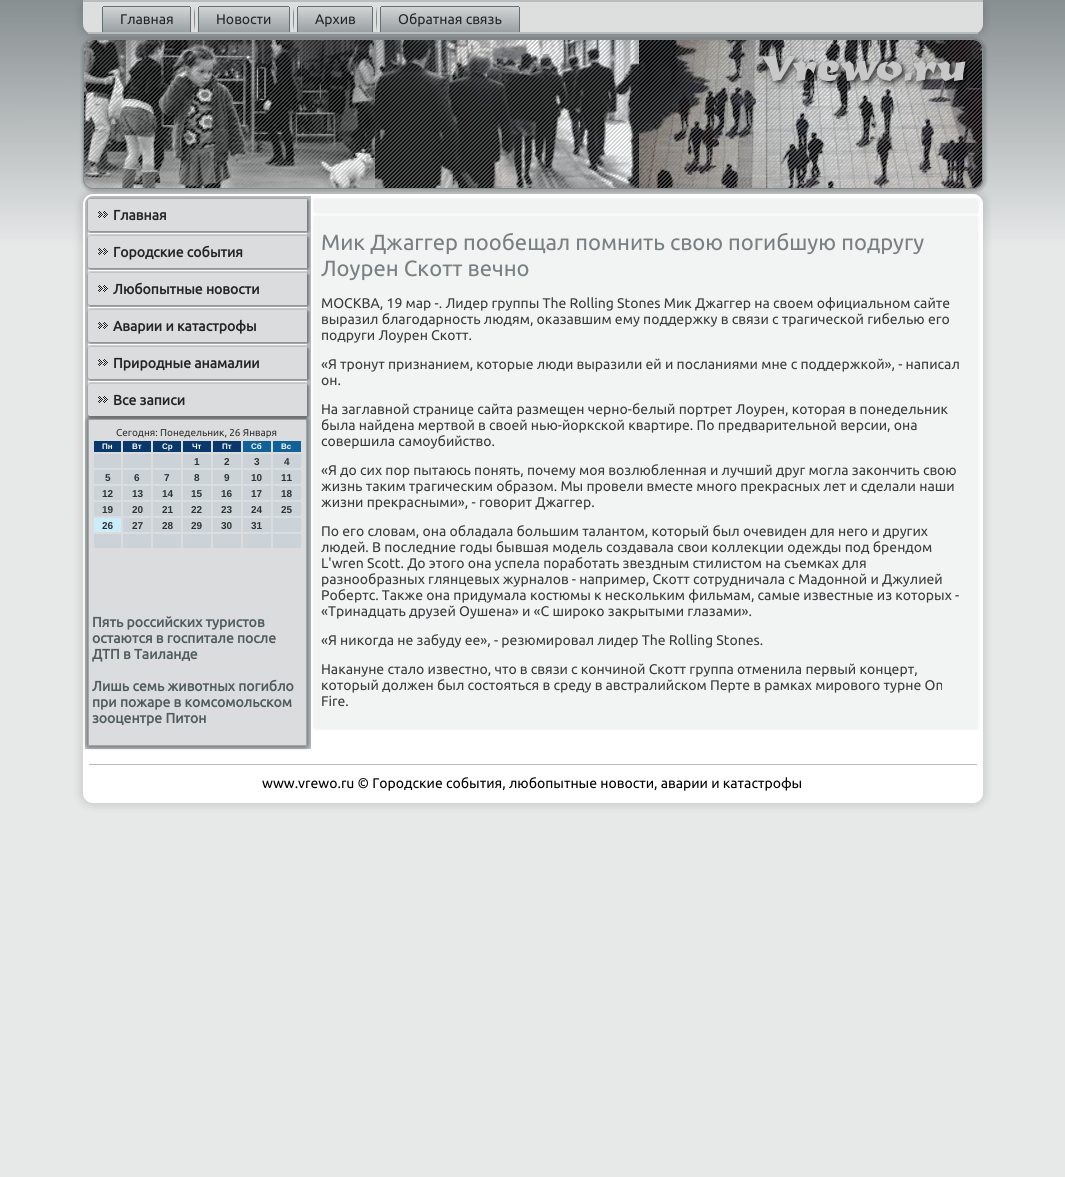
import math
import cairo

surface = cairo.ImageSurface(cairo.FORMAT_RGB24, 1065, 1177)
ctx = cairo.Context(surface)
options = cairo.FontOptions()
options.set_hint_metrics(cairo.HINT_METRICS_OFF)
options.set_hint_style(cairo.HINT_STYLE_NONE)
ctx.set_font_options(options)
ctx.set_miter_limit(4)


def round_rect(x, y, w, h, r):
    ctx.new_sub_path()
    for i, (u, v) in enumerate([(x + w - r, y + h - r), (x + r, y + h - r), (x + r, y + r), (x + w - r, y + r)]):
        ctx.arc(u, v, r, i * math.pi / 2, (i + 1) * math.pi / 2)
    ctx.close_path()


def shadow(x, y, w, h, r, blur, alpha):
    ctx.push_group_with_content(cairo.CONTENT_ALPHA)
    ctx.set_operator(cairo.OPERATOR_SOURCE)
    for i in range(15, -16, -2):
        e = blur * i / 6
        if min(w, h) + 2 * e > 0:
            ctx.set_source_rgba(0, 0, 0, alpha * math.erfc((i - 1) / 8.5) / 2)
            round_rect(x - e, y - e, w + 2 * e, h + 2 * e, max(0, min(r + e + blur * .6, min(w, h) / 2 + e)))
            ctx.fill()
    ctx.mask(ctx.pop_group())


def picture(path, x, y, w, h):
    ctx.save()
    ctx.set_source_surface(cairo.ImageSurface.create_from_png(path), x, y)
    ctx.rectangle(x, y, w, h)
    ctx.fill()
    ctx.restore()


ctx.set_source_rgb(1, 1, 1)
ctx.paint()
gradient = cairo.LinearGradient(532, 0, 533, 1177)
gradient.add_color_stop_rgba(0, 0.533, 0.561, 0.569, 1)
gradient.add_color_stop_rgba(0.21, 0.906, 0.914, 0.914, 1)
ctx.set_source(gradient)
ctx.rectangle(0, 0, 1065, 1177)
ctx.fill()
ctx.set_source_rgb(0, 0, 0)
shadow(82, 38, 904, 154, 12, 1.5, 0.2)
picture("img2.png", 83, 39, 900, 150)
round_rect(83.5, 39.5, 899, 149, 9.5)
ctx.set_source_rgb(0.533, 0.561, 0.569)
ctx.set_line_width(1)
ctx.stroke()
ctx.set_source_rgb(0, 0, 0)
shadow(79, -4, 908, 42, 14, 3.5, 0.1)
ctx.set_source_rgb(0.867, 0.875, 0.875)
ctx.new_path()
ctx.move_to(83, 0)
ctx.line_to(983, 0)
ctx.line_to(983, 24)
ctx.curve_to(983, 29.5, 978.5, 34, 973, 34)
ctx.line_to(93, 34)
ctx.curve_to(87.5, 34, 83, 29.5, 83, 24)
ctx.close_path()
ctx.fill()
ctx.set_source_rgb(0.718, 0.737, 0.741)
ctx.rectangle(83, 0, 900, 2)
ctx.fill()
ctx.rectangle(88, 32, 890, 2)
ctx.fill()
gradient = cairo.LinearGradient(147, 6, 147, 32)
gradient.add_color_stop_rgba(0, 0.835, 0.843, 0.847, 1)
gradient.add_color_stop_rgba(1, 0.604, 0.627, 0.635, 1)
ctx.set_source(gradient)
ctx.new_path()
ctx.move_to(104, 6)
ctx.line_to(189, 6)
ctx.curve_to(190, 6, 191, 7, 191, 8)
ctx.line_to(191, 32)
ctx.line_to(102, 32)
ctx.line_to(102, 8)
ctx.curve_to(102, 7, 103, 6, 104, 6)
ctx.close_path()
ctx.fill()
ctx.set_source_rgb(0.376, 0.435, 0.443)
ctx.rectangle(103, 6, 87, 1)
ctx.fill()
ctx.rectangle(190, 7, 1, 25)
ctx.fill()
ctx.rectangle(102, 7, 1, 25)
ctx.fill()
ctx.select_font_face("Ubuntu")
ctx.set_font_size(14)
ctx.set_source_rgb(0.133, 0.145, 0.145)
ctx.move_to(120, 24)
ctx.show_text("Главная")
picture("img1.png", 194, 7, 1, 24)
gradient = cairo.LinearGradient(244, 6, 244, 32)
gradient.add_color_stop_rgba(0, 0.835, 0.843, 0.847, 1)
gradient.add_color_stop_rgba(1, 0.604, 0.627, 0.635, 1)
ctx.set_source(gradient)
ctx.new_path()
ctx.move_to(200, 6)
ctx.line_to(288, 6)
ctx.curve_to(289, 6, 290, 7, 290, 8)
ctx.line_to(290, 32)
ctx.line_to(198, 32)
ctx.line_to(198, 8)
ctx.curve_to(198, 7, 199, 6, 200, 6)
ctx.close_path()
ctx.fill()
ctx.set_source_rgb(0.376, 0.435, 0.443)
ctx.rectangle(199, 6, 90, 1)
ctx.fill()
ctx.rectangle(289, 7, 1, 25)
ctx.fill()
ctx.rectangle(198, 7, 1, 25)
ctx.fill()
ctx.set_source_rgb(0.133, 0.145, 0.145)
ctx.move_to(216, 24)
ctx.show_text("Новости")
picture("img1.png", 293, 7, 1, 24)
gradient = cairo.LinearGradient(335, 6, 335, 32)
gradient.add_color_stop_rgba(0, 0.835, 0.843, 0.847, 1)
gradient.add_color_stop_rgba(1, 0.604, 0.627, 0.635, 1)
ctx.set_source(gradient)
ctx.new_path()
ctx.move_to(299, 6)
ctx.line_to(371, 6)
ctx.curve_to(372, 6, 373, 7, 373, 8)
ctx.line_to(373, 32)
ctx.line_to(297, 32)
ctx.line_to(297, 8)
ctx.curve_to(297, 7, 298, 6, 299, 6)
ctx.close_path()
ctx.fill()
ctx.set_source_rgb(0.376, 0.435, 0.443)
ctx.rectangle(298, 6, 74, 1)
ctx.fill()
ctx.rectangle(372, 7, 1, 25)
ctx.fill()
ctx.rectangle(297, 7, 1, 25)
ctx.fill()
ctx.set_source_rgb(0.133, 0.145, 0.145)
ctx.move_to(315, 24)
ctx.show_text("Архив")
picture("img1.png", 376, 7, 1, 24)
gradient = cairo.LinearGradient(450, 6, 450, 32)
gradient.add_color_stop_rgba(0, 0.835, 0.843, 0.847, 1)
gradient.add_color_stop_rgba(1, 0.604, 0.627, 0.635, 1)
ctx.set_source(gradient)
ctx.new_path()
ctx.move_to(382, 6)
ctx.line_to(518, 6)
ctx.curve_to(519, 6, 520, 7, 520, 8)
ctx.line_to(520, 32)
ctx.line_to(380, 32)
ctx.line_to(380, 8)
ctx.curve_to(380, 7, 381, 6, 382, 6)
ctx.close_path()
ctx.fill()
ctx.set_source_rgb(0.376, 0.435, 0.443)
ctx.rectangle(381, 6, 138, 1)
ctx.fill()
ctx.rectangle(519, 7, 1, 25)
ctx.fill()
ctx.rectangle(380, 7, 1, 25)
ctx.fill()
ctx.set_source_rgb(0.133, 0.145, 0.145)
ctx.move_to(398, 24)
ctx.show_text("Обратная связь")
ctx.set_source_rgb(0, 0, 0)
shadow(79, 190, 908, 617, 14, 3.5, 0.1)
ctx.set_source_rgb(1, 1, 1)
round_rect(83, 194, 900, 609, 10)
ctx.fill()
ctx.set_source_rgb(0.718, 0.737, 0.741)
ctx.new_path()
ctx.move_to(93, 196)
ctx.line_to(311, 196)
ctx.line_to(311, 749)
ctx.line_to(85, 749)
ctx.line_to(85, 204)
ctx.curve_to(85, 199.5, 88.5, 196, 93, 196)
ctx.close_path()
ctx.fill()
ctx.set_source_rgb(0.855, 0.863, 0.867)
round_rect(88, 199, 219, 217, 2)
ctx.fill()
ctx.set_source_rgb(0, 0, 0)
shadow(88, 199, 221, 34, 3, 1, 0.35)
ctx.set_source_rgb(0.855, 0.863, 0.867)
ctx.new_path()
ctx.move_to(90, 199)
ctx.line_to(307, 199)
ctx.line_to(307, 231)
ctx.line_to(90, 231)
ctx.curve_to(89, 231, 88, 230, 88, 229)
ctx.line_to(88, 201)
ctx.curve_to(88, 200, 89, 199, 90, 199)
ctx.close_path()
ctx.fill()
picture("img3.png", 98, 211, 10, 7)
ctx.select_font_face("Ubuntu", cairo.FONT_SLANT_NORMAL, cairo.FONT_WEIGHT_BOLD)
ctx.set_source_rgb(0.133, 0.145, 0.145)
ctx.move_to(113, 220)
ctx.show_text("Главная")
ctx.set_source_rgb(0, 0, 0)
shadow(88, 236, 221, 34, 3, 1, 0.35)
ctx.set_source_rgb(0.98, 0.98, 0.98)
ctx.rectangle(88, 233, 219, 1)
ctx.fill()
ctx.set_source_rgb(0.855, 0.863, 0.867)
ctx.new_path()
ctx.move_to(90, 236)
ctx.line_to(307, 236)
ctx.line_to(307, 268)
ctx.line_to(90, 268)
ctx.curve_to(89, 268, 88, 267, 88, 266)
ctx.line_to(88, 238)
ctx.curve_to(88, 237, 89, 236, 90, 236)
ctx.close_path()
ctx.fill()
picture("img3.png", 98, 248, 10, 7)
ctx.set_source_rgb(0.133, 0.145, 0.145)
ctx.move_to(113, 257)
ctx.show_text("Городские события")
ctx.set_source_rgb(0, 0, 0)
shadow(88, 273, 221, 34, 3, 1, 0.35)
ctx.set_source_rgb(0.98, 0.98, 0.98)
ctx.rectangle(88, 270, 219, 1)
ctx.fill()
ctx.set_source_rgb(0.855, 0.863, 0.867)
ctx.new_path()
ctx.move_to(90, 273)
ctx.line_to(307, 273)
ctx.line_to(307, 305)
ctx.line_to(90, 305)
ctx.curve_to(89, 305, 88, 304, 88, 303)
ctx.line_to(88, 275)
ctx.curve_to(88, 274, 89, 273, 90, 273)
ctx.close_path()
ctx.fill()
picture("img3.png", 98, 285, 10, 7)
ctx.set_source_rgb(0.133, 0.145, 0.145)
ctx.move_to(113, 294)
ctx.show_text("Любопытные новости")
ctx.set_source_rgb(0, 0, 0)
shadow(88, 310, 221, 34, 3, 1, 0.35)
ctx.set_source_rgb(0.98, 0.98, 0.98)
ctx.rectangle(88, 307, 219, 1)
ctx.fill()
ctx.set_source_rgb(0.855, 0.863, 0.867)
ctx.new_path()
ctx.move_to(90, 310)
ctx.line_to(307, 310)
ctx.line_to(307, 342)
ctx.line_to(90, 342)
ctx.curve_to(89, 342, 88, 341, 88, 340)
ctx.line_to(88, 312)
ctx.curve_to(88, 311, 89, 310, 90, 310)
ctx.close_path()
ctx.fill()
picture("img3.png", 98, 322, 10, 7)
ctx.set_source_rgb(0.133, 0.145, 0.145)
ctx.move_to(113, 331)
ctx.show_text("Аварии и катастрофы")
ctx.set_source_rgb(0, 0, 0)
shadow(88, 347, 221, 34, 3, 1, 0.35)
ctx.set_source_rgb(0.98, 0.98, 0.98)
ctx.rectangle(88, 344, 219, 1)
ctx.fill()
ctx.set_source_rgb(0.855, 0.863, 0.867)
ctx.new_path()
ctx.move_to(90, 347)
ctx.line_to(307, 347)
ctx.line_to(307, 379)
ctx.line_to(90, 379)
ctx.curve_to(89, 379, 88, 378, 88, 377)
ctx.line_to(88, 349)
ctx.curve_to(88, 348, 89, 347, 90, 347)
ctx.close_path()
ctx.fill()
picture("img3.png", 98, 359, 10, 7)
ctx.set_source_rgb(0.133, 0.145, 0.145)
ctx.move_to(113, 368)
ctx.show_text("Природные анамалии")
ctx.set_source_rgb(0, 0, 0)
shadow(86, 417, 223, 331, 4, 1.5, 0.3)
ctx.set_source_rgb(0.855, 0.863, 0.867)
ctx.new_path()
ctx.move_to(90, 419.5)
ctx.line_to(305, 419.5)
ctx.curve_to(306, 419.5, 306.5, 420, 306.5, 421)
ctx.line_to(306.5, 745.5)
ctx.line_to(88.5, 745.5)
ctx.line_to(88.5, 421)
ctx.curve_to(88.5, 420, 89, 419.5, 90, 419.5)
ctx.close_path()
ctx.fill_preserve()
ctx.set_source_rgb(0.627, 0.647, 0.655)
ctx.stroke()
ctx.set_source_rgb(0, 0, 0)
shadow(88, 384, 221, 34, 3, 1, 0.35)
ctx.set_source_rgb(0.98, 0.98, 0.98)
ctx.rectangle(88, 381, 219, 1)
ctx.fill()
ctx.set_source_rgb(0.855, 0.863, 0.867)
ctx.new_path()
ctx.move_to(90, 384)
ctx.line_to(307, 384)
ctx.line_to(307, 416)
ctx.line_to(90, 416)
ctx.curve_to(89, 416, 88, 415, 88, 414)
ctx.line_to(88, 386)
ctx.curve_to(88, 385, 89, 384, 90, 384)
ctx.close_path()
ctx.fill()
picture("img3.png", 98, 396, 10, 7)
ctx.set_source_rgb(0.133, 0.145, 0.145)
ctx.move_to(113, 405)
ctx.show_text("Все записи")
ctx.select_font_face("Ubuntu")
ctx.set_font_size(10)
ctx.set_source_rgb(0.184, 0.196, 0.196)
ctx.move_to(116, 436)
ctx.show_text("Сегодня: Понедельник, 26 Января")
ctx.set_source_rgb(0.039, 0.22, 0.424)
ctx.rectangle(94, 441, 27, 11)
ctx.fill()
ctx.select_font_face("Liberation Sans", cairo.FONT_SLANT_NORMAL, cairo.FONT_WEIGHT_BOLD)
ctx.set_font_size(8)
ctx.set_source_rgb(1, 1, 1)
ctx.move_to(102, 449)
ctx.show_text("Пн")
ctx.set_source_rgb(0.039, 0.22, 0.424)
ctx.rectangle(123, 441, 28, 11)
ctx.fill()
ctx.set_source_rgb(1, 1, 1)
ctx.move_to(132, 449)
ctx.show_text("Вт")
ctx.set_source_rgb(0.039, 0.22, 0.424)
ctx.rectangle(153, 441, 28, 11)
ctx.fill()
ctx.set_source_rgb(1, 1, 1)
ctx.move_to(162, 449)
ctx.show_text("Ср")
ctx.set_source_rgb(0.039, 0.22, 0.424)
ctx.rectangle(183, 441, 28, 11)
ctx.fill()
ctx.set_source_rgb(1, 1, 1)
ctx.move_to(192, 449)
ctx.show_text("Чт")
ctx.set_source_rgb(0.039, 0.22, 0.424)
ctx.rectangle(213, 441, 28, 11)
ctx.fill()
ctx.set_source_rgb(1, 1, 1)
ctx.move_to(222, 449)
ctx.show_text("Пт")
ctx.set_source_rgb(0.063, 0.38, 0.592)
ctx.rectangle(243, 441, 28, 11)
ctx.fill()
ctx.set_source_rgb(1, 1, 1)
ctx.move_to(251, 449)
ctx.show_text("Сб")
ctx.set_source_rgb(0.063, 0.38, 0.592)
ctx.rectangle(273, 441, 28, 11)
ctx.fill()
ctx.set_source_rgb(1, 1, 1)
ctx.move_to(281, 449)
ctx.show_text("Вс")
ctx.set_source_rgb(0.796, 0.827, 0.847)
ctx.rectangle(94, 454, 27, 14)
ctx.fill()
ctx.rectangle(123, 454, 28, 14)
ctx.fill()
ctx.rectangle(153, 454, 28, 14)
ctx.fill()
ctx.rectangle(183, 454, 28, 14)
ctx.fill()
ctx.set_font_size(10)
ctx.set_source_rgb(0.184, 0.196, 0.196)
ctx.move_to(194, 465)
ctx.show_text("1")
ctx.set_source_rgb(0.796, 0.827, 0.847)
ctx.rectangle(213, 454, 28, 14)
ctx.fill()
ctx.set_source_rgb(0.184, 0.196, 0.196)
ctx.move_to(224, 465)
ctx.show_text("2")
ctx.set_source_rgb(0.796, 0.827, 0.847)
ctx.rectangle(243, 454, 28, 14)
ctx.fill()
ctx.set_source_rgb(0.184, 0.196, 0.196)
ctx.move_to(254, 465)
ctx.show_text("3")
ctx.set_source_rgb(0.796, 0.827, 0.847)
ctx.rectangle(273, 454, 28, 14)
ctx.fill()
ctx.set_source_rgb(0.184, 0.196, 0.196)
ctx.move_to(284, 465)
ctx.show_text("4")
ctx.set_source_rgb(0.796, 0.827, 0.847)
ctx.rectangle(94, 470, 27, 14)
ctx.fill()
ctx.set_source_rgb(0.184, 0.196, 0.196)
ctx.move_to(105, 481)
ctx.show_text("5")
ctx.set_source_rgb(0.796, 0.827, 0.847)
ctx.rectangle(123, 470, 28, 14)
ctx.fill()
ctx.set_source_rgb(0.184, 0.196, 0.196)
ctx.move_to(134, 481)
ctx.show_text("6")
ctx.set_source_rgb(0.796, 0.827, 0.847)
ctx.rectangle(153, 470, 28, 14)
ctx.fill()
ctx.set_source_rgb(0.184, 0.196, 0.196)
ctx.move_to(164, 481)
ctx.show_text("7")
ctx.set_source_rgb(0.796, 0.827, 0.847)
ctx.rectangle(183, 470, 28, 14)
ctx.fill()
ctx.set_source_rgb(0.184, 0.196, 0.196)
ctx.move_to(194, 481)
ctx.show_text("8")
ctx.set_source_rgb(0.796, 0.827, 0.847)
ctx.rectangle(213, 470, 28, 14)
ctx.fill()
ctx.set_source_rgb(0.184, 0.196, 0.196)
ctx.move_to(224, 481)
ctx.show_text("9")
ctx.set_source_rgb(0.796, 0.827, 0.847)
ctx.rectangle(243, 470, 28, 14)
ctx.fill()
ctx.set_source_rgb(0.184, 0.196, 0.196)
ctx.move_to(251, 481)
ctx.show_text("10")
ctx.set_source_rgb(0.796, 0.827, 0.847)
ctx.rectangle(273, 470, 28, 14)
ctx.fill()
ctx.set_source_rgb(0.184, 0.196, 0.196)
ctx.move_to(281, 481)
ctx.show_text("11")
ctx.set_source_rgb(0.796, 0.827, 0.847)
ctx.rectangle(94, 486, 27, 14)
ctx.fill()
ctx.set_source_rgb(0.184, 0.196, 0.196)
ctx.move_to(102, 497)
ctx.show_text("12")
ctx.set_source_rgb(0.796, 0.827, 0.847)
ctx.rectangle(123, 486, 28, 14)
ctx.fill()
ctx.set_source_rgb(0.184, 0.196, 0.196)
ctx.move_to(132, 497)
ctx.show_text("13")
ctx.set_source_rgb(0.796, 0.827, 0.847)
ctx.rectangle(153, 486, 28, 14)
ctx.fill()
ctx.set_source_rgb(0.184, 0.196, 0.196)
ctx.move_to(162, 497)
ctx.show_text("14")
ctx.set_source_rgb(0.796, 0.827, 0.847)
ctx.rectangle(183, 486, 28, 14)
ctx.fill()
ctx.set_source_rgb(0.184, 0.196, 0.196)
ctx.move_to(191, 497)
ctx.show_text("15")
ctx.set_source_rgb(0.796, 0.827, 0.847)
ctx.rectangle(213, 486, 28, 14)
ctx.fill()
ctx.set_source_rgb(0.184, 0.196, 0.196)
ctx.move_to(221, 497)
ctx.show_text("16")
ctx.set_source_rgb(0.796, 0.827, 0.847)
ctx.rectangle(243, 486, 28, 14)
ctx.fill()
ctx.set_source_rgb(0.184, 0.196, 0.196)
ctx.move_to(251, 497)
ctx.show_text("17")
ctx.set_source_rgb(0.796, 0.827, 0.847)
ctx.rectangle(273, 486, 28, 14)
ctx.fill()
ctx.set_source_rgb(0.184, 0.196, 0.196)
ctx.move_to(281, 497)
ctx.show_text("18")
ctx.set_source_rgb(0.796, 0.827, 0.847)
ctx.rectangle(94, 502, 27, 14)
ctx.fill()
ctx.set_source_rgb(0.184, 0.196, 0.196)
ctx.move_to(102, 513)
ctx.show_text("19")
ctx.set_source_rgb(0.796, 0.827, 0.847)
ctx.rectangle(123, 502, 28, 14)
ctx.fill()
ctx.set_source_rgb(0.184, 0.196, 0.196)
ctx.move_to(132, 513)
ctx.show_text("20")
ctx.set_source_rgb(0.796, 0.827, 0.847)
ctx.rectangle(153, 502, 28, 14)
ctx.fill()
ctx.set_source_rgb(0.184, 0.196, 0.196)
ctx.move_to(162, 513)
ctx.show_text("21")
ctx.set_source_rgb(0.796, 0.827, 0.847)
ctx.rectangle(183, 502, 28, 14)
ctx.fill()
ctx.set_source_rgb(0.184, 0.196, 0.196)
ctx.move_to(191, 513)
ctx.show_text("22")
ctx.set_source_rgb(0.796, 0.827, 0.847)
ctx.rectangle(213, 502, 28, 14)
ctx.fill()
ctx.set_source_rgb(0.184, 0.196, 0.196)
ctx.move_to(221, 513)
ctx.show_text("23")
ctx.set_source_rgb(0.796, 0.827, 0.847)
ctx.rectangle(243, 502, 28, 14)
ctx.fill()
ctx.set_source_rgb(0.184, 0.196, 0.196)
ctx.move_to(251, 513)
ctx.show_text("24")
ctx.set_source_rgb(0.796, 0.827, 0.847)
ctx.rectangle(273, 502, 28, 14)
ctx.fill()
ctx.set_source_rgb(0.184, 0.196, 0.196)
ctx.move_to(281, 513)
ctx.show_text("25")
ctx.set_source_rgb(0.792, 0.922, 0.984)
ctx.rectangle(94, 518, 27, 14)
ctx.fill()
ctx.set_source_rgb(0.184, 0.196, 0.196)
ctx.move_to(102, 529)
ctx.show_text("26")
ctx.set_source_rgb(0.796, 0.827, 0.847)
ctx.rectangle(123, 518, 28, 14)
ctx.fill()
ctx.set_source_rgb(0.184, 0.196, 0.196)
ctx.move_to(132, 529)
ctx.show_text("27")
ctx.set_source_rgb(0.796, 0.827, 0.847)
ctx.rectangle(153, 518, 28, 14)
ctx.fill()
ctx.set_source_rgb(0.184, 0.196, 0.196)
ctx.move_to(162, 529)
ctx.show_text("28")
ctx.set_source_rgb(0.796, 0.827, 0.847)
ctx.rectangle(183, 518, 28, 14)
ctx.fill()
ctx.set_source_rgb(0.184, 0.196, 0.196)
ctx.move_to(191, 529)
ctx.show_text("29")
ctx.set_source_rgb(0.796, 0.827, 0.847)
ctx.rectangle(213, 518, 28, 14)
ctx.fill()
ctx.set_source_rgb(0.184, 0.196, 0.196)
ctx.move_to(221, 529)
ctx.show_text("30")
ctx.set_source_rgb(0.796, 0.827, 0.847)
ctx.rectangle(243, 518, 28, 14)
ctx.fill()
ctx.set_source_rgb(0.184, 0.196, 0.196)
ctx.move_to(251, 529)
ctx.show_text("31")
ctx.set_source_rgb(0.796, 0.827, 0.847)
ctx.rectangle(273, 518, 28, 14)
ctx.fill()
ctx.rectangle(94, 534, 27, 14)
ctx.fill()
ctx.rectangle(123, 534, 28, 14)
ctx.fill()
ctx.rectangle(153, 534, 28, 14)
ctx.fill()
ctx.rectangle(183, 534, 28, 14)
ctx.fill()
ctx.rectangle(213, 534, 28, 14)
ctx.fill()
ctx.rectangle(243, 534, 28, 14)
ctx.fill()
ctx.rectangle(273, 534, 28, 14)
ctx.fill()
ctx.select_font_face("Ubuntu", cairo.FONT_SLANT_NORMAL, cairo.FONT_WEIGHT_BOLD)
ctx.set_font_size(14)
ctx.set_source_rgb(0.314, 0.361, 0.369)
ctx.move_to(92, 627)
ctx.show_text("Пять российских туристов")
ctx.move_to(92, 643)
ctx.show_text("остаются в госпитале после")
ctx.move_to(92, 659)
ctx.show_text("ДТП в Таиланде")
ctx.move_to(92, 691)
ctx.show_text("Лишь семь животных погибло")
ctx.move_to(92, 707)
ctx.show_text("при пожаре в комсомольском")
ctx.move_to(92, 723)
ctx.show_text("зооцентре Питон")
ctx.set_source_rgb(0, 0, 0)
shadow(313, 198, 666, 16, 3, 1, 0.04)
ctx.set_source_rgb(0.945, 0.949, 0.949)
round_rect(314, 199, 664, 14, 2)
ctx.fill()
ctx.set_source_rgb(0, 0, 0)
shadow(313, 215, 666, 515, 3, 1, 0.04)
ctx.set_source_rgb(0.949, 0.953, 0.953)
round_rect(314, 216, 664, 513, 2)
ctx.fill()
ctx.select_font_face("Ubuntu")
ctx.set_font_size(22)
ctx.set_source_rgb(0.471, 0.502, 0.51)
ctx.move_to(321, 250)
ctx.show_text("Мик Джаггер пообещал помнить свою погибшую подругу")
ctx.move_to(321, 276)
ctx.show_text("Лоурен Скотт вечно")
ctx.set_font_size(14)
ctx.set_source_rgb(0.22, 0.235, 0.239)
ctx.move_to(321, 308)
ctx.show_text("МОСКВА, 19 мар -. Лидер группы The Rolling Stones Мик Джаггер на своем официальном сайте")
ctx.move_to(321, 324)
ctx.show_text("выразил благодарность людям, оказавшим ему поддержку в связи с трагической гибелью его")
ctx.move_to(321, 340)
ctx.show_text("подруги Лоурен Скотт.")
ctx.move_to(321, 369)
ctx.show_text("«Я тронут признанием, которые люди выразили ей и посланиями мне с поддержкой», - написал")
ctx.move_to(321, 385)
ctx.show_text("он.")
ctx.move_to(321, 414)
ctx.show_text("На заглавной странице сайта размещен черно-белый портрет Лоурен, которая в понедельник")
ctx.move_to(321, 430)
ctx.show_text("была найдена мертвой в своей нью-йоркской квартире. По предварительной версии, она")
ctx.move_to(321, 446)
ctx.show_text("совершила самоубийство.")
ctx.move_to(321, 475)
ctx.show_text("«Я до сих пор пытаюсь понять, почему моя возлюбленная и лучший друг могла закончить свою")
ctx.move_to(321, 491)
ctx.show_text("жизнь таким трагическим образом. Мы провели вместе много прекрасных лет и сделали наши")
ctx.move_to(321, 507)
ctx.show_text("жизни прекрасными», - говорит Джаггер.")
ctx.move_to(321, 536)
ctx.show_text("По его словам, она обладала большим талантом, который был очевиден для него и других")
ctx.move_to(321, 552)
ctx.show_text("людей. В последние годы бывшая модель создавала свои коллекции одежды под брендом")
ctx.move_to(321, 568)
ctx.show_text("L'wren Scott. До этого она успела поработать звездным стилистом на съемках для")
ctx.move_to(321, 584)
ctx.show_text("разнообразных глянцевых журналов - например, Скотт сотрудничала с Мадонной и Джулией")
ctx.move_to(321, 600)
ctx.show_text("Робертс. Также она придумала костюмы к нескольким фильмам, самые известные из которых -")
ctx.move_to(321, 616)
ctx.show_text("«Тринадцать друзей Оушена» и «С широко закрытыми глазами».")
ctx.move_to(321, 645)
ctx.show_text("«Я никогда не забуду ее», - резюмировал лидер The Rolling Stones.")
ctx.move_to(321, 674)
ctx.show_text("Накануне стало известно, что в связи с кончиной Скотт группа отменила первый концерт,")
ctx.move_to(321, 690)
ctx.show_text("который должен был состояться в среду в австралийском Перте в рамках мирового турне On")
ctx.move_to(321, 706)
ctx.show_text("Fire.")
ctx.set_source_rgb(0.718, 0.737, 0.741)
ctx.rectangle(89, 764, 888, 1)
ctx.fill()
ctx.set_source_rgb(0, 0, 0)
ctx.move_to(262, 788)
ctx.show_text("www.vrewo.ru © Городские события, любопытные новοсти, аварии и катастрофы")
surface.write_to_png("page.png")
